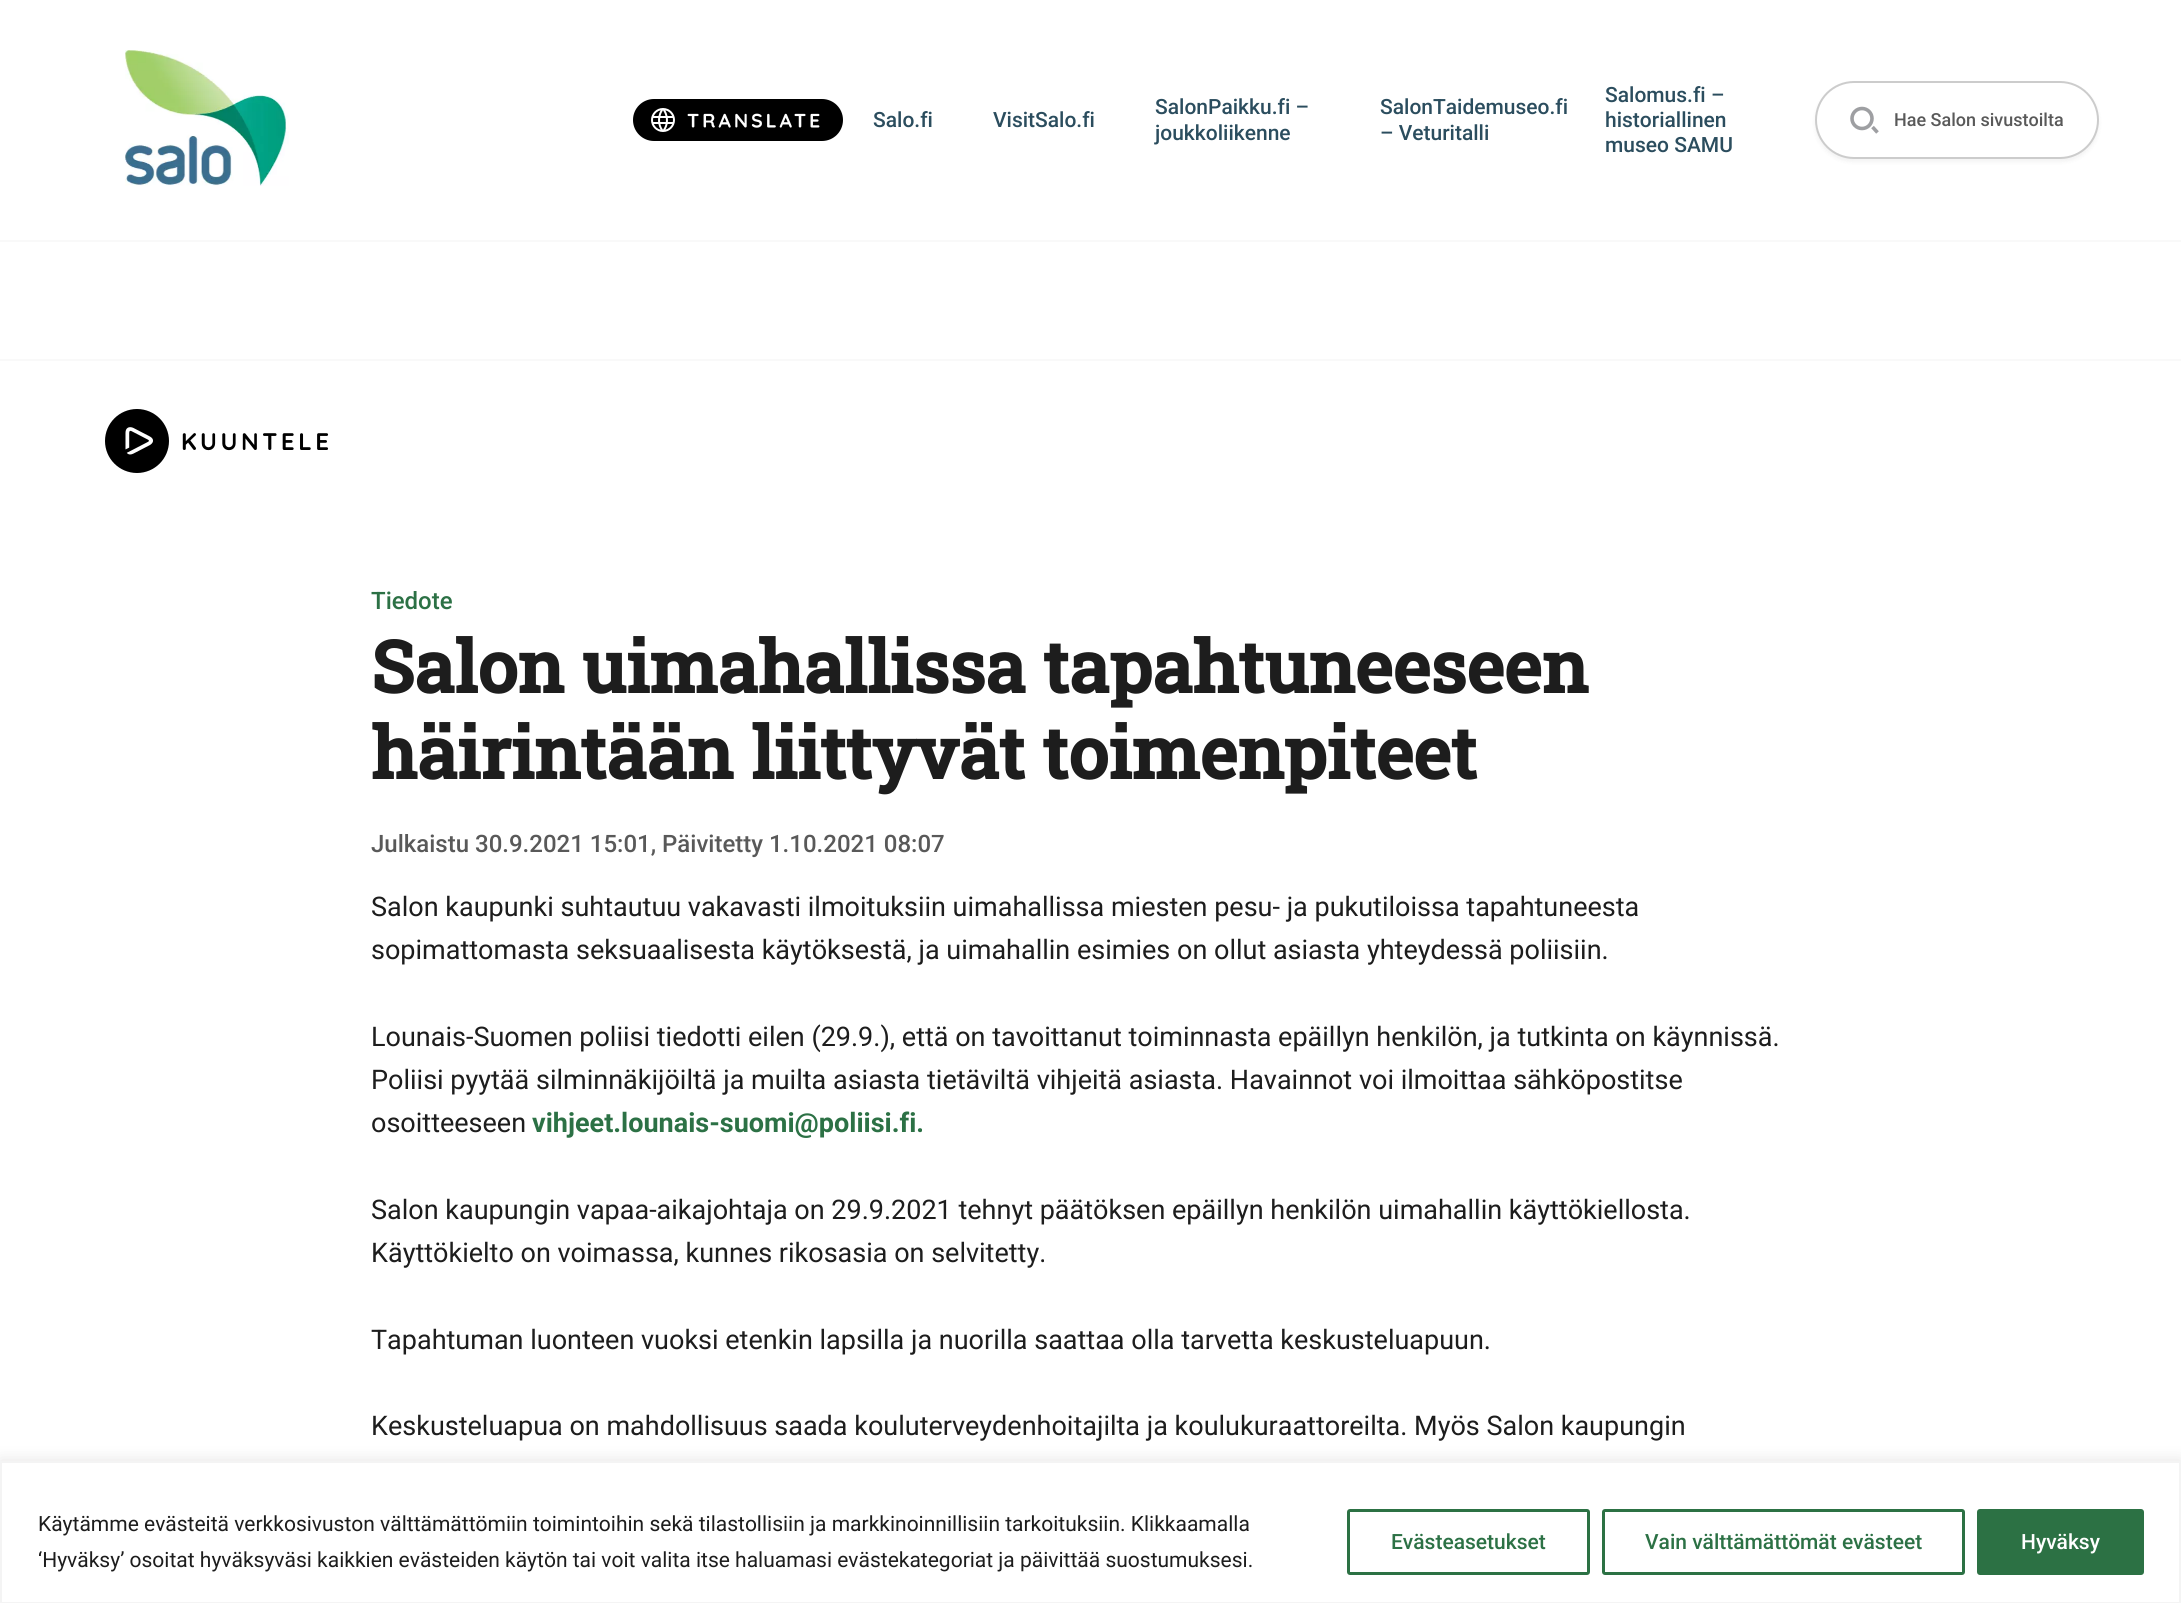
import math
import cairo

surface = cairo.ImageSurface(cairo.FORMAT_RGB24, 2181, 1603)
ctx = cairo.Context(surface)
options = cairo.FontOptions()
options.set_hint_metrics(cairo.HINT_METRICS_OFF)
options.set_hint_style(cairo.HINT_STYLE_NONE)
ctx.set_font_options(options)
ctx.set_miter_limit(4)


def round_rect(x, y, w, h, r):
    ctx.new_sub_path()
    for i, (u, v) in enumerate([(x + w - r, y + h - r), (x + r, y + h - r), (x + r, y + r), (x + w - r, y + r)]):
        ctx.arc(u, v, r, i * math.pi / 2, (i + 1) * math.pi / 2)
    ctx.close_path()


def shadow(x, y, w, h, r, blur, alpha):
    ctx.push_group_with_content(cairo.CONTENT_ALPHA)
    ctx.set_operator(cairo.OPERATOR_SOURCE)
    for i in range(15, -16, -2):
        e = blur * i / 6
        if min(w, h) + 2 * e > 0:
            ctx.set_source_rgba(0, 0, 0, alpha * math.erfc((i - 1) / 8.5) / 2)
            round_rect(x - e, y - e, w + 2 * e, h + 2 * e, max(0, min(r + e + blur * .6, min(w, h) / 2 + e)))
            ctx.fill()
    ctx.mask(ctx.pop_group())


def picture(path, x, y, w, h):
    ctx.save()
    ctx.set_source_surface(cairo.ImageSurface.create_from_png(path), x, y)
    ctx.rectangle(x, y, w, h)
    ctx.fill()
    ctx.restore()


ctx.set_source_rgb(1, 1, 1)
ctx.paint()
picture("img1.png", 125, 50, 164, 136)
picture("img2.png", 633, 99, 210, 42)
ctx.select_font_face("Roboto Medium")
ctx.set_font_size(21)
ctx.set_source_rgb(0.169, 0.302, 0.369)
ctx.move_to(873, 127)
ctx.show_text("Salo.fi")
ctx.move_to(993, 127)
ctx.show_text("VisitSalo.fi")
ctx.move_to(1155, 114)
ctx.show_text("SalonPaikku.fi –")
ctx.move_to(1155, 140)
ctx.show_text("joukkoliikenne")
ctx.move_to(1380, 114)
ctx.show_text("SalonTaidemuseo.fi")
ctx.move_to(1380, 140)
ctx.show_text("– Veturitalli")
ctx.move_to(1605, 102)
ctx.show_text("Salomus.fi –")
ctx.move_to(1605, 127)
ctx.show_text("historiallinen")
ctx.move_to(1605, 152)
ctx.show_text("museo SAMU")
ctx.set_source_rgb(0, 0, 0)
shadow(1815, 84, 284, 78, 39, 2, 0.05)
ctx.set_source_rgb(1, 1, 1)
round_rect(1816, 82, 282, 76, 38)
ctx.fill_preserve()
ctx.set_source_rgb(0.8, 0.8, 0.8)
ctx.stroke()
ctx.arc(1862, 118.5, 10, 0, 2 * math.pi)
ctx.set_source_rgb(0.62, 0.624, 0.635)
ctx.set_line_width(3.6)
ctx.stroke()
ctx.new_path()
ctx.move_to(1872.5, 127)
ctx.line_to(1877.5, 132.5)
ctx.stroke()
ctx.set_font_size(18)
ctx.set_source_rgb(0.349, 0.349, 0.349)
ctx.move_to(1894, 126)
ctx.show_text("Hae Salon sivustoilta")
ctx.set_source_rgb(0.973, 0.973, 0.973)
ctx.rectangle(0, 240, 2181, 2)
ctx.fill()
ctx.rectangle(0, 359, 2181, 2)
ctx.fill()
picture("img3.png", 105, 409, 224, 64)
ctx.set_font_size(24)
ctx.set_source_rgb(0.173, 0.443, 0.271)
ctx.move_to(371, 609)
ctx.show_text("Tiedote")
ctx.select_font_face("Roboto Slab", cairo.FONT_SLANT_NORMAL, cairo.FONT_WEIGHT_BOLD)
ctx.set_font_size(72)
ctx.set_source_rgb(0.114, 0.114, 0.114)
ctx.move_to(371, 693)
ctx.show_text("Salon uimahallissa tapahtuneeseen")
ctx.move_to(371, 779)
ctx.show_text("häirintään liittyvät toimenpiteet")
ctx.select_font_face("Roboto Medium")
ctx.set_font_size(24)
ctx.set_source_rgb(0.349, 0.349, 0.349)
ctx.move_to(371, 852)
ctx.show_text("Julkaistu 30.9.2021 15:01, Päivitetty 1.10.2021 08:07")
ctx.select_font_face("Roboto")
ctx.set_font_size(27)
ctx.set_source_rgb(0.114, 0.114, 0.114)
ctx.move_to(371, 916)
ctx.show_text("Salon kaupunki suhtautuu vakavasti ilmoituksiin uimahallissa miesten pesu- ja pukutiloissa tapahtuneesta")
ctx.move_to(371, 959)
ctx.show_text("sopimattomasta seksuaalisesta käytöksestä, ja uimahallin esimies on ollut asiasta yhteydessä poliisiin.")
ctx.move_to(371, 1046)
ctx.show_text("Lounais-Suomen poliisi tiedotti eilen (29.9.), että on tavoittanut toiminnasta epäillyn henkilön, ja tutkinta on käynnissä.")
ctx.move_to(371, 1089)
ctx.show_text("Poliisi pyytää silminnäkijöiltä ja muilta asiasta tietäviltä vihjeitä asiasta. Havainnot voi ilmoittaa sähköpostitse")
ctx.move_to(371, 1132)
ctx.show_text("osoitteeseen")
ctx.select_font_face("Roboto", cairo.FONT_SLANT_NORMAL, cairo.FONT_WEIGHT_BOLD)
ctx.set_source_rgb(0.173, 0.443, 0.271)
ctx.move_to(532, 1132)
ctx.show_text("vihjeet.lounais-suomi@poliisi.fi.")
ctx.select_font_face("Roboto")
ctx.set_source_rgb(0.114, 0.114, 0.114)
ctx.move_to(371, 1219)
ctx.show_text("Salon kaupungin vapaa-aikajohtaja on 29.9.2021 tehnyt päätöksen epäillyn henkilön uimahallin käyttökiellosta.")
ctx.move_to(371, 1262)
ctx.show_text("Käyttökielto on voimassa, kunnes rikosasia on selvitetty.")
ctx.move_to(371, 1349)
ctx.show_text("Tapahtuman luonteen vuoksi etenkin lapsilla ja nuorilla saattaa olla tarvetta keskusteluapuun.")
ctx.move_to(371, 1435)
ctx.show_text("Keskusteluapua on mahdollisuus saada kouluterveydenhoitajilta ja koulukuraattoreilta. Myös Salon kaupungin")
ctx.set_source_rgb(0.675, 0.671, 0.671)
shadow(0, 1460, 2181, 142, 0, 7.5, 0.3)
ctx.set_source_rgb(1, 1, 1)
ctx.rectangle(1, 1462, 2179, 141)
ctx.fill_preserve()
ctx.set_source_rgb(0.957, 0.957, 0.957)
ctx.set_line_width(2)
ctx.stroke()
ctx.set_font_size(21)
ctx.set_source_rgb(0.114, 0.114, 0.114)
ctx.move_to(38, 1531)
ctx.show_text("Käytämme evästeitä verkkosivuston välttämättömiin toimintoihin sekä tilastollisiin ja markkinoinnillisiin tarkoituksiin. Klikkaamalla")
ctx.move_to(38, 1567)
ctx.show_text("‘Hyväksy’ osoitat hyväksyväsi kaikkien evästeiden käytön tai voit valita itse haluamasi evästekategoriat ja päivittää suostumuksesi.")
round_rect(1348.5, 1510.5, 240, 63, 1.5)
ctx.set_source_rgb(0.173, 0.443, 0.267)
ctx.set_line_width(3)
ctx.stroke()
ctx.select_font_face("Roboto Medium")
ctx.set_source_rgb(0.173, 0.443, 0.271)
ctx.move_to(1391, 1549)
ctx.show_text("Evästeasetukset")
round_rect(1603.5, 1510.5, 360, 63, 1.5)
ctx.set_source_rgb(0.173, 0.443, 0.267)
ctx.stroke()
ctx.set_source_rgb(0.173, 0.443, 0.271)
ctx.move_to(1645, 1549)
ctx.show_text("Vain välttämättömät evästeet")
ctx.set_source_rgb(0.173, 0.443, 0.267)
round_rect(1978.5, 1510.5, 164, 63, 1.5)
ctx.fill_preserve()
ctx.stroke()
ctx.set_source_rgb(1, 1, 1)
ctx.move_to(2021, 1549)
ctx.show_text("Hyväksy")
surface.write_to_png("page.png")
